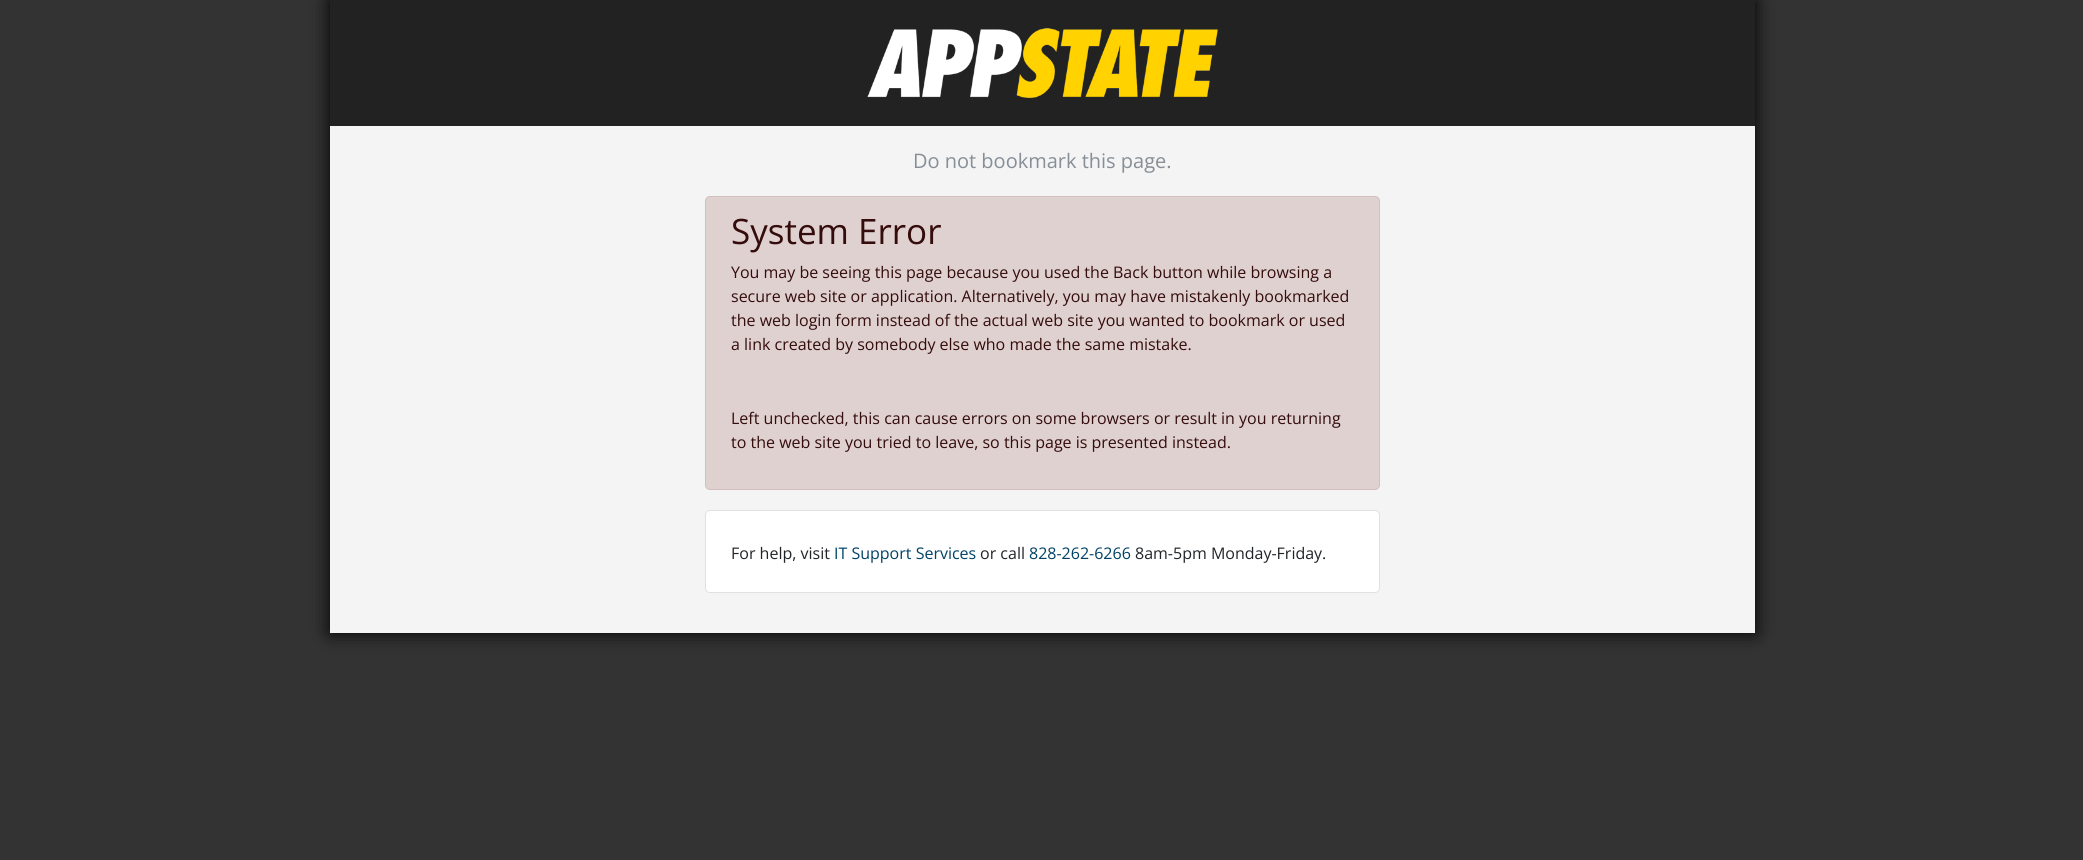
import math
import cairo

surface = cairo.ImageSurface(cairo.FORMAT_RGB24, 2083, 860)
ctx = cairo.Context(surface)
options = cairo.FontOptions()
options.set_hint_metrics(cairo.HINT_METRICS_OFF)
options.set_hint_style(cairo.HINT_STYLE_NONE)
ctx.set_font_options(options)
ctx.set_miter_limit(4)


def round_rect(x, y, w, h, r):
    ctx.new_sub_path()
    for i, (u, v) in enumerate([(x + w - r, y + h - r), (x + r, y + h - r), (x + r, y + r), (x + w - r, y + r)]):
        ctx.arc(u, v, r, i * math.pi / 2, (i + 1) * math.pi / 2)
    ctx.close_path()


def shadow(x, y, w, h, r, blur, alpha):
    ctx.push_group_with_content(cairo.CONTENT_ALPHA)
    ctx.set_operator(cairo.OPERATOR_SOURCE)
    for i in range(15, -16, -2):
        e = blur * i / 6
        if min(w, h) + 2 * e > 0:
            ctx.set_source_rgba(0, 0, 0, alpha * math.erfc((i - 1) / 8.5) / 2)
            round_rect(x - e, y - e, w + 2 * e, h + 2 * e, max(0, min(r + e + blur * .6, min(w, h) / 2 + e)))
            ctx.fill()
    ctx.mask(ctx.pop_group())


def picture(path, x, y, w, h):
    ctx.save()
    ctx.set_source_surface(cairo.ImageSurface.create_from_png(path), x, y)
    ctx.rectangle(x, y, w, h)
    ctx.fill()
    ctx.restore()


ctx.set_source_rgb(0.2, 0.2, 0.2)
ctx.paint()
ctx.set_source_rgb(0, 0, 0)
shadow(330, 0, 1425, 633, 0, 9.5, 1)
ctx.set_source_rgb(0.957, 0.957, 0.957)
ctx.rectangle(330, 126, 1425, 507)
ctx.fill()
ctx.set_source_rgb(0.133, 0.133, 0.133)
ctx.rectangle(330, 0, 1425, 126)
ctx.fill()
picture("img1.png", 867, 28, 351, 70)
ctx.select_font_face("Open Sans")
ctx.set_font_size(20)
ctx.set_source_rgb(0.525, 0.557, 0.588)
ctx.move_to(913, 168)
ctx.show_text("Do not bookmark this page.")
ctx.set_source_rgb(0.878, 0.82, 0.82)
round_rect(705.5, 196.5, 674, 293, 4.5)
ctx.fill_preserve()
ctx.set_source_rgb(0.831, 0.745, 0.745)
ctx.set_line_width(1)
ctx.stroke()
ctx.set_font_size(35)
ctx.set_source_rgb(0.204, 0.047, 0.047)
ctx.move_to(731, 244)
ctx.show_text("System Error")
ctx.set_font_size(16)
ctx.move_to(731, 278)
ctx.show_text("You may be seeing this page because you used the Back button while browsing a")
ctx.move_to(731, 302)
ctx.show_text("secure web site or application. Alternatively, you may have mistakenly bookmarked")
ctx.move_to(731, 326)
ctx.show_text("the web login form instead of the actual web site you wanted to bookmark or used")
ctx.move_to(731, 350)
ctx.show_text("a link created by somebody else who made the same mistake.")
ctx.move_to(731, 424)
ctx.show_text("Left unchecked, this can cause errors on some browsers or result in you returning")
ctx.move_to(731, 448)
ctx.show_text("to the web site you tried to leave, so this page is presented instead.")
ctx.set_source_rgb(1, 1, 1)
round_rect(705, 510, 675, 83, 5)
ctx.fill()
round_rect(705.5, 510.5, 674, 82, 4.5)
ctx.set_source_rgba(0, 0, 0, 0.12)
ctx.stroke()
ctx.set_source_rgb(0.129, 0.145, 0.161)
ctx.move_to(731, 559)
ctx.show_text("For help, visit")
ctx.set_source_rgb(0.004, 0.259, 0.4)
ctx.move_to(834, 559)
ctx.show_text("IT Support Services")
ctx.set_source_rgb(0.129, 0.145, 0.161)
ctx.move_to(980, 559)
ctx.show_text("or call")
ctx.set_source_rgb(0.004, 0.259, 0.4)
ctx.move_to(1029, 559)
ctx.show_text("828-262-6266")
ctx.set_source_rgb(0.129, 0.145, 0.161)
ctx.move_to(1135, 559)
ctx.show_text("8am-5pm Monday-Friday.")
surface.write_to_png("page.png")
